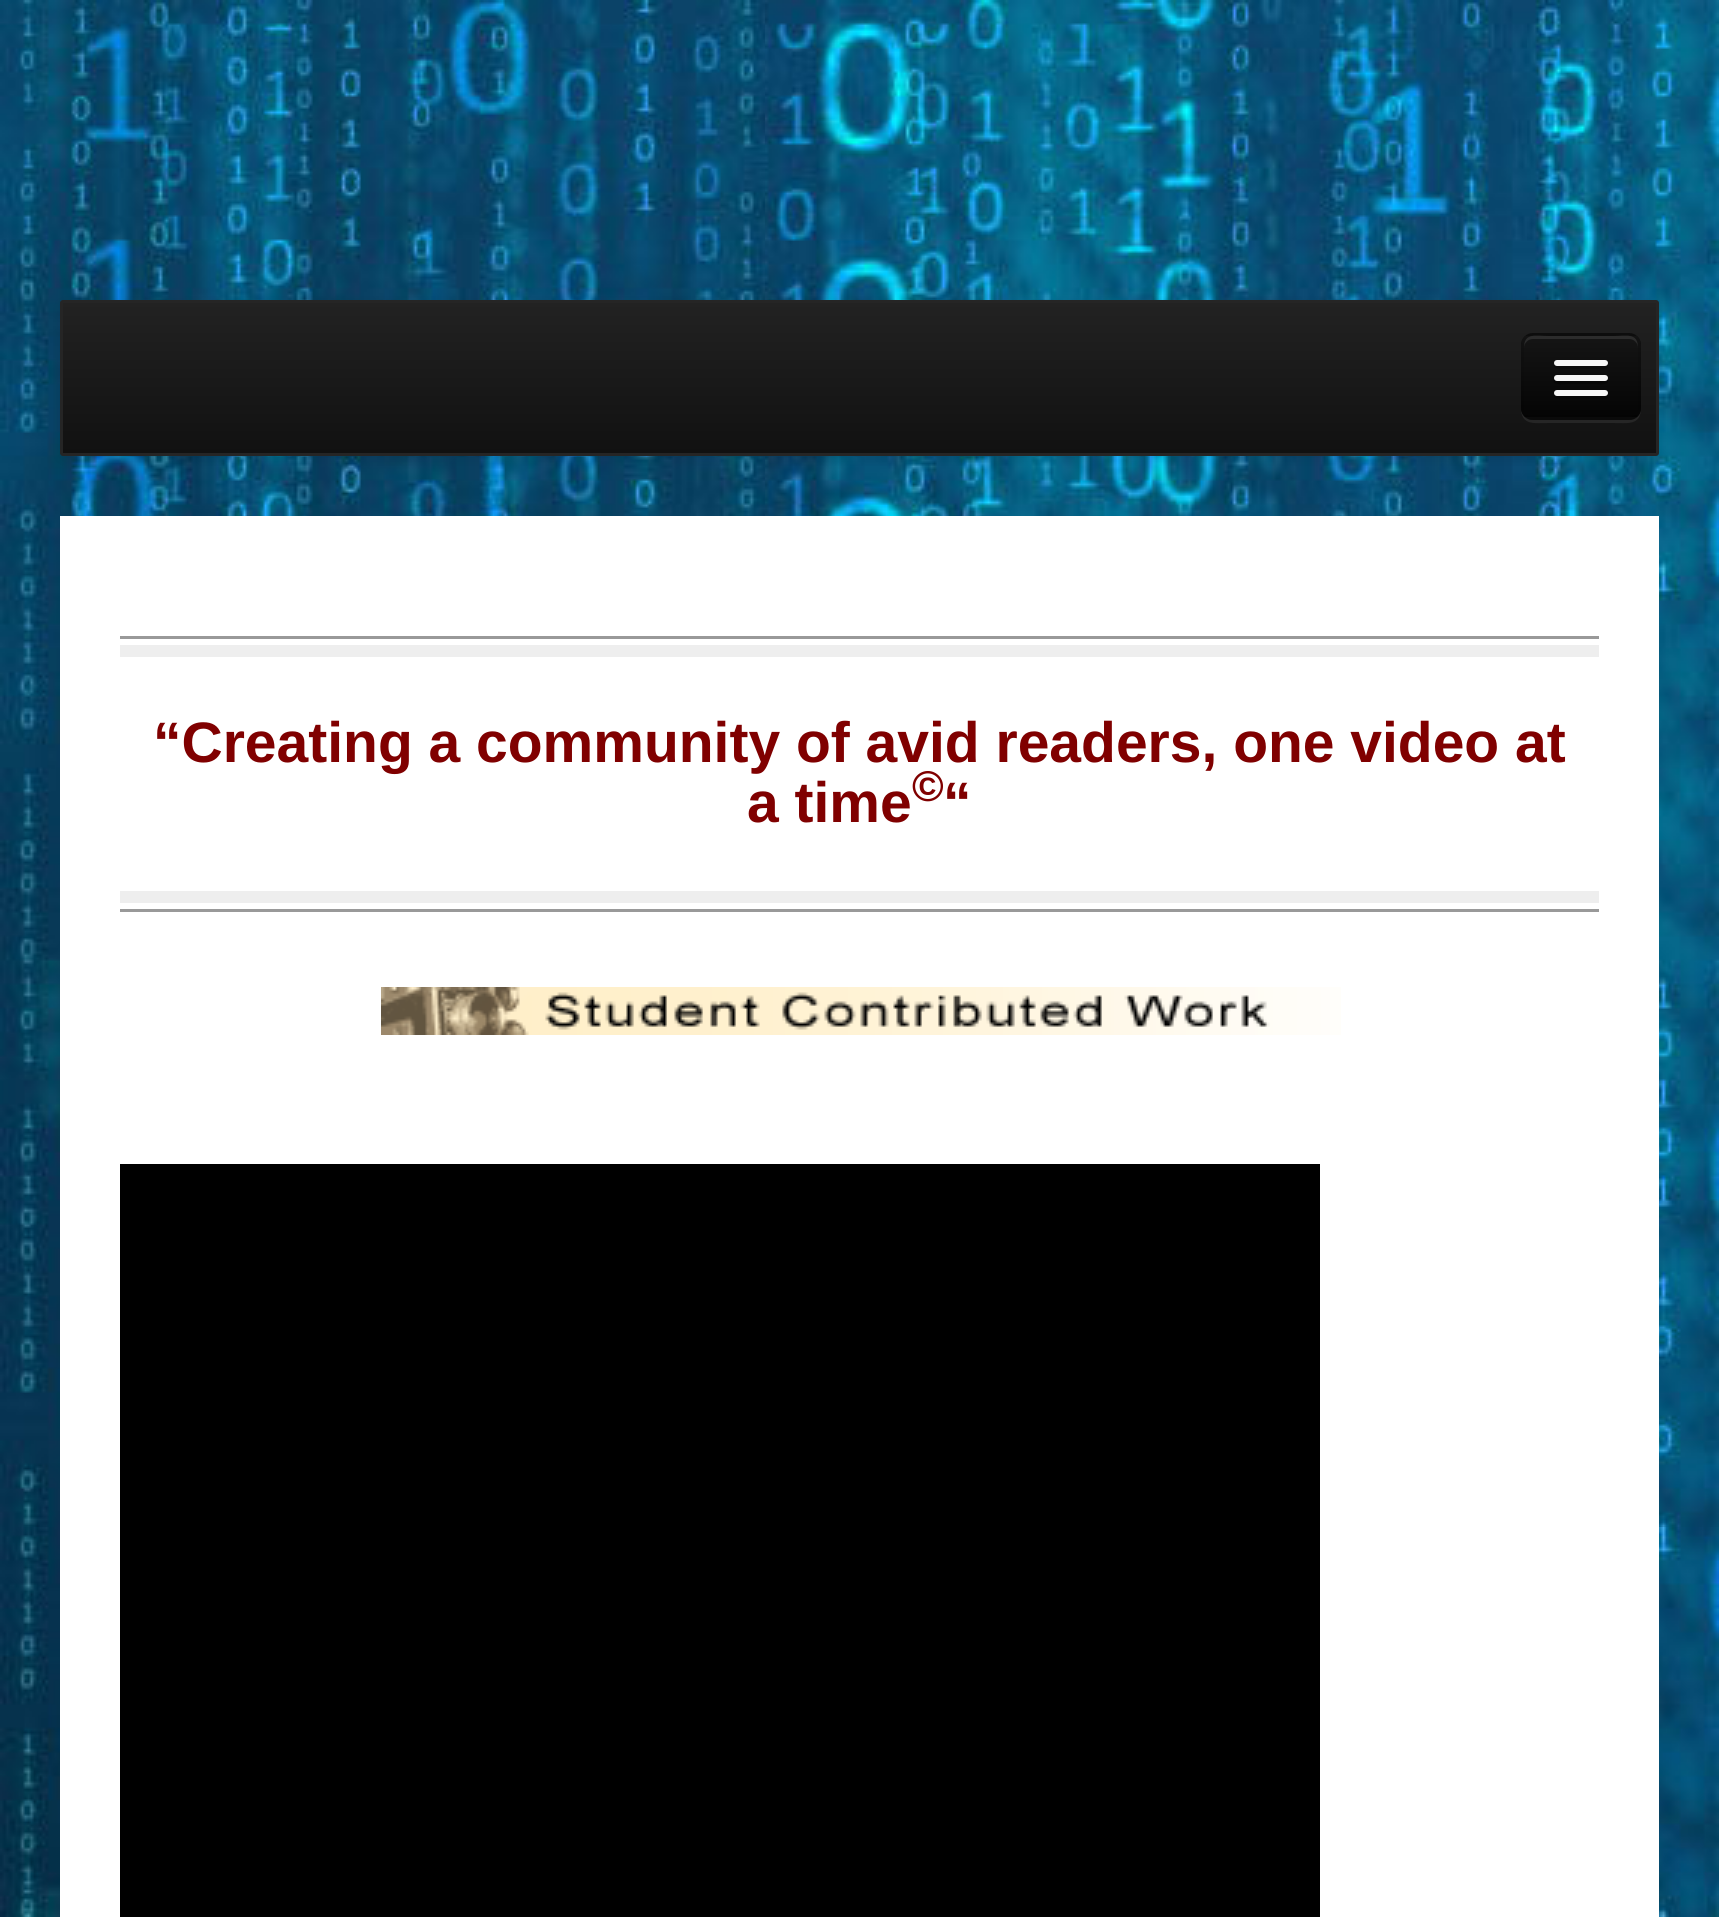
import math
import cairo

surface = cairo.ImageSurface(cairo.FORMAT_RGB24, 1719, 1917)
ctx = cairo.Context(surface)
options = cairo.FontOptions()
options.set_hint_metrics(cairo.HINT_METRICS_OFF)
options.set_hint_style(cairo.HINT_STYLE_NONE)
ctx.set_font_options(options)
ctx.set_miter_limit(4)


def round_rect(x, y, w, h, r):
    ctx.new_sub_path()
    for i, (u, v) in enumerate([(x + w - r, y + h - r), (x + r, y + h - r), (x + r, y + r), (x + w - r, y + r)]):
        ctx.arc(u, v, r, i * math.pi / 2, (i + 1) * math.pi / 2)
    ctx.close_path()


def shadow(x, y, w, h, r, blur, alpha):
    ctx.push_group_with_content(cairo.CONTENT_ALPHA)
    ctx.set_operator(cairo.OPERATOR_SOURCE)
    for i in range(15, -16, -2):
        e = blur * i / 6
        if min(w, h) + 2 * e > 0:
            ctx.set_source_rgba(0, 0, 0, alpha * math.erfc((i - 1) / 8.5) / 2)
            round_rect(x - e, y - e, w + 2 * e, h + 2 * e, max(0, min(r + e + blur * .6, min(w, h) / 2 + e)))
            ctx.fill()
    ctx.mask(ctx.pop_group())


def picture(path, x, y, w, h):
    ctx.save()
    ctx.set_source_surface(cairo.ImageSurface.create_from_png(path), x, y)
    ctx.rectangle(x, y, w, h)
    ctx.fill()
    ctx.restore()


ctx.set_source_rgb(1, 1, 1)
ctx.paint()
picture("img1.png", 0, 0, 1719, 1917)
ctx.set_source_rgb(0, 0, 0)
shadow(60, 303, 1599, 156, 3, 6, 0.07)
gradient = cairo.LinearGradient(860, 303, 860, 453)
gradient.add_color_stop_rgba(0, 0.133, 0.133, 0.133, 1)
gradient.add_color_stop_rgba(1, 0.067, 0.067, 0.067, 1)
ctx.set_source(gradient)
ctx.rectangle(63, 303, 1593, 150)
ctx.fill()
round_rect(61.5, 301.5, 1596, 153, 1.5)
ctx.set_source_rgb(0.145, 0.145, 0.145)
ctx.set_line_width(3)
ctx.stroke()
ctx.set_source_rgb(0.149, 0.149, 0.149)
ctx.new_path()
ctx.move_to(1521, 408)
ctx.curve_to(1521, 426, 1535, 423, 1549, 423)
ctx.line_to(1613, 423)
ctx.curve_to(1627, 423, 1641, 426, 1641, 408)
ctx.curve_to(1641, 415, 1636, 420, 1629, 420)
ctx.line_to(1533, 420)
ctx.curve_to(1526, 420, 1521, 415, 1521, 408)
ctx.close_path()
ctx.fill()
ctx.set_source_rgb(0.055, 0.055, 0.055)
round_rect(1521, 333, 120, 87, 12)
ctx.fill()
ctx.save()
round_rect(1521, 333, 120, 87, 12)
ctx.clip()
gradient = cairo.LinearGradient(1581, 336, 1581, 417)
gradient.add_color_stop_rgba(0, 0.082, 0.082, 0.082, 1)
gradient.add_color_stop_rgba(1, 0.016, 0.016, 0.016, 1)
ctx.set_source(gradient)
ctx.rectangle(1521, 336, 120, 81)
ctx.fill()
ctx.restore()
ctx.set_source_rgb(0.173, 0.173, 0.173)
ctx.new_path()
ctx.move_to(1533, 339)
ctx.line_to(1629, 339)
ctx.curve_to(1634, 339, 1638, 343, 1638, 348)
ctx.curve_to(1638, 332, 1626, 336, 1613, 336)
ctx.line_to(1549, 336)
ctx.curve_to(1536, 336, 1524, 332, 1524, 348)
ctx.curve_to(1524, 343, 1528, 339, 1533, 339)
ctx.close_path()
ctx.fill()
ctx.new_path()
ctx.move_to(1636.5, 415.5)
ctx.curve_to(1634.5, 417.5, 1632, 418.5, 1629, 418.5)
ctx.line_to(1533, 418.5)
ctx.curve_to(1530, 418.5, 1527.5, 417.5, 1525.5, 415.5)
ctx.set_source_rgba(0, 0, 0, 0.25)
ctx.stroke()
ctx.new_path()
ctx.move_to(1525.5, 415.5)
ctx.curve_to(1523.5, 413.5, 1522.5, 411, 1522.5, 408)
ctx.line_to(1522.5, 345)
ctx.curve_to(1522.5, 342, 1523.5, 339.5, 1525.5, 337.5)
ctx.curve_to(1527.5, 335.5, 1530, 334.5, 1533, 334.5)
ctx.line_to(1629, 334.5)
ctx.curve_to(1632, 334.5, 1634.5, 335.5, 1636.5, 337.5)
ctx.curve_to(1638.5, 339.5, 1639.5, 342, 1639.5, 345)
ctx.line_to(1639.5, 408)
ctx.curve_to(1639.5, 411, 1638.5, 413.5, 1636.5, 415.5)
ctx.set_source_rgba(0, 0, 0, 0.1)
ctx.stroke()
ctx.set_source_rgb(0.043, 0.043, 0.043)
ctx.new_path()
ctx.move_to(1554, 364)
ctx.curve_to(1551, 371, 1565, 369, 1565, 369)
ctx.line_to(1597, 369)
ctx.curve_to(1597, 369, 1611, 371, 1608, 364)
ctx.curve_to(1607, 365, 1606, 366, 1605, 366)
ctx.line_to(1557, 366)
ctx.curve_to(1556, 366, 1555, 365, 1554, 364)
ctx.close_path()
ctx.fill()
ctx.set_source_rgb(0.961, 0.961, 0.961)
round_rect(1554, 360, 54, 6, 3)
ctx.fill()
ctx.set_source_rgb(0.031, 0.031, 0.031)
ctx.new_path()
ctx.move_to(1554, 380)
ctx.curve_to(1551, 386, 1565, 384, 1565, 384)
ctx.line_to(1597, 384)
ctx.curve_to(1597, 384, 1611, 386, 1608, 380)
ctx.curve_to(1607, 380, 1606, 381, 1605, 381)
ctx.line_to(1557, 381)
ctx.curve_to(1556, 381, 1555, 380, 1554, 380)
ctx.close_path()
ctx.fill()
ctx.set_source_rgb(0.961, 0.961, 0.961)
round_rect(1554, 375, 54, 6, 3)
ctx.fill()
ctx.set_source_rgb(0.024, 0.024, 0.024)
ctx.new_path()
ctx.move_to(1554, 394)
ctx.curve_to(1551, 401, 1565, 399, 1565, 399)
ctx.line_to(1597, 399)
ctx.curve_to(1597, 399, 1611, 401, 1608, 394)
ctx.curve_to(1607, 395, 1606, 396, 1605, 396)
ctx.line_to(1557, 396)
ctx.curve_to(1556, 396, 1555, 395, 1554, 394)
ctx.close_path()
ctx.fill()
ctx.set_source_rgb(0.961, 0.961, 0.961)
round_rect(1554, 390, 54, 6, 3)
ctx.fill()
ctx.set_source_rgb(1, 1, 1)
ctx.rectangle(60, 516, 1599, 1401)
ctx.fill()
ctx.set_source_rgb(0.6, 0.6, 0.6)
ctx.rectangle(120, 636, 1479, 3)
ctx.fill()
ctx.rectangle(120, 909, 1479, 3)
ctx.fill()
ctx.set_source_rgb(0.933, 0.933, 0.933)
ctx.rectangle(120, 645, 1479, 12)
ctx.fill()
ctx.rectangle(120, 891, 1479, 12)
ctx.fill()
ctx.select_font_face("Liberation Sans", cairo.FONT_SLANT_NORMAL, cairo.FONT_WEIGHT_BOLD)
ctx.set_font_size(57)
ctx.set_source_rgb(0.502, 0, 0)
ctx.move_to(153, 762)
ctx.show_text("“Creating a community of avid readers, one video at")
ctx.move_to(747, 822)
ctx.show_text("a time")
ctx.set_font_size(43)
ctx.move_to(912, 801)
ctx.show_text("©")
ctx.set_font_size(57)
ctx.move_to(943, 822)
ctx.show_text("“")
picture("img2.png", 381, 987, 960, 48)
ctx.set_source_rgb(0, 0, 0)
ctx.rectangle(120, 1164, 1200, 753)
ctx.fill()
surface.write_to_png("page.png")
